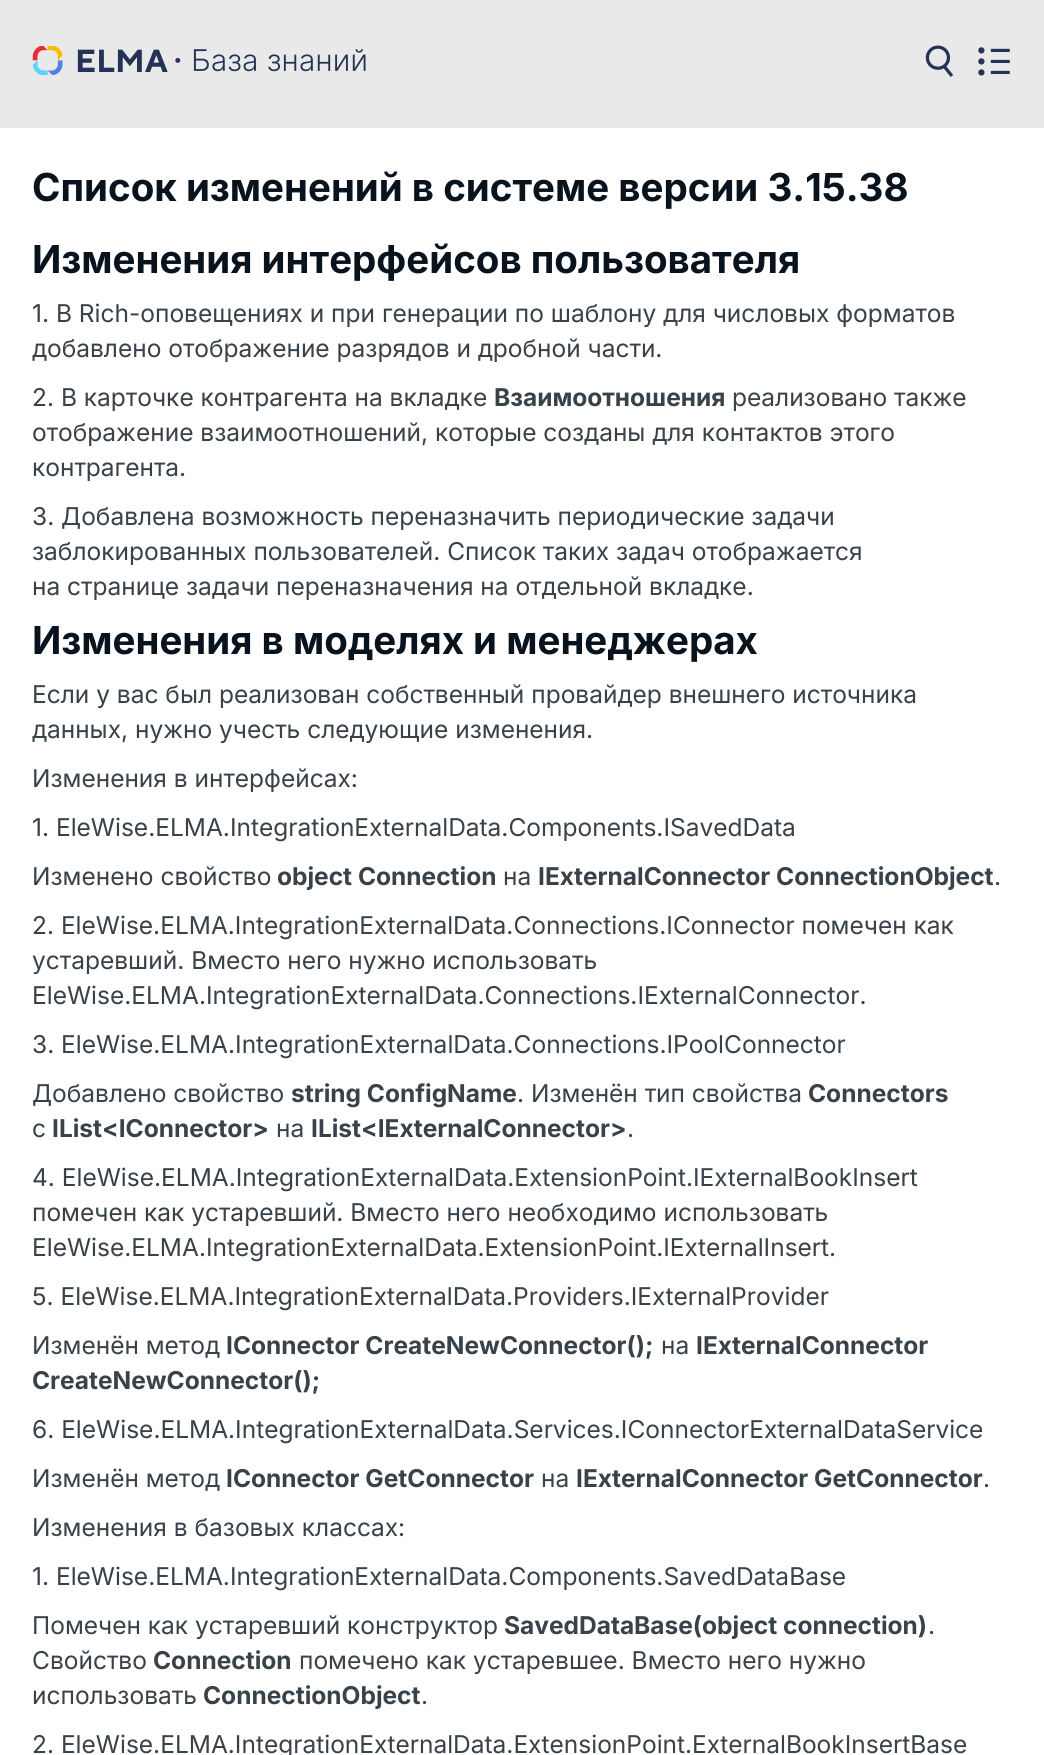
import math
import cairo

surface = cairo.ImageSurface(cairo.FORMAT_RGB24, 1044, 1755)
ctx = cairo.Context(surface)
options = cairo.FontOptions()
options.set_hint_metrics(cairo.HINT_METRICS_OFF)
options.set_hint_style(cairo.HINT_STYLE_NONE)
ctx.set_font_options(options)
ctx.set_miter_limit(4)


def picture(path, x, y, w, h):
    ctx.save()
    ctx.set_source_surface(cairo.ImageSurface.create_from_png(path), x, y)
    ctx.rectangle(x, y, w, h)
    ctx.fill()
    ctx.restore()


ctx.set_source_rgb(1, 1, 1)
ctx.paint()
ctx.set_source_rgb(0.914, 0.914, 0.914)
ctx.rectangle(0, 0, 1044, 128)
ctx.fill()
picture("img1.png", 32, 46, 334, 29)
picture("img2.png", 925, 45, 29, 32)
picture("img3.png", 978, 47, 32, 29)
ctx.select_font_face("Inter", cairo.FONT_SLANT_NORMAL, cairo.FONT_WEIGHT_BOLD)
ctx.set_font_size(38.5)
ctx.set_source_rgb(0.039, 0.078, 0.118)
ctx.move_to(32, 201)
ctx.show_text("Список изменений в системе версии 3.15.38")
ctx.move_to(32, 273)
ctx.show_text("Изменения интерфейсов пользователя")
ctx.select_font_face("Inter")
ctx.set_font_size(24.5)
ctx.set_source_rgb(0.224, 0.255, 0.286)
ctx.move_to(32, 322)
ctx.show_text("1. В Rich-оповещениях и при генерации по шаблону для числовых форматов")
ctx.move_to(32, 357)
ctx.show_text("добавлено отображение разрядов и дробной части.")
ctx.move_to(32, 406)
ctx.show_text("2. В карточке контрагента на вкладке")
ctx.select_font_face("Inter", cairo.FONT_SLANT_NORMAL, cairo.FONT_WEIGHT_BOLD)
ctx.move_to(494, 406)
ctx.show_text("Взаимоотношения")
ctx.select_font_face("Inter")
ctx.move_to(732, 406)
ctx.show_text("реализовано также")
ctx.move_to(32, 441)
ctx.show_text("отображение взаимоотношений, которые созданы для контактов этого")
ctx.move_to(32, 476)
ctx.show_text("контрагента.")
ctx.move_to(32, 525)
ctx.show_text("3. Добавлена возможность переназначить периодические задачи")
ctx.move_to(32, 560)
ctx.show_text("заблокированных пользователей. Список таких задач отображается")
ctx.move_to(32, 595)
ctx.show_text("на странице задачи переназначения на отдельной вкладке.")
ctx.select_font_face("Inter", cairo.FONT_SLANT_NORMAL, cairo.FONT_WEIGHT_BOLD)
ctx.set_font_size(38.5)
ctx.set_source_rgb(0.039, 0.078, 0.118)
ctx.move_to(32, 654)
ctx.show_text("Изменения в моделях и менеджерах")
ctx.select_font_face("Inter")
ctx.set_font_size(24.5)
ctx.set_source_rgb(0.224, 0.255, 0.286)
ctx.move_to(32, 703)
ctx.show_text("Если у вас был реализован собственный провайдер внешнего источника")
ctx.move_to(32, 738)
ctx.show_text("данных, нужно учесть следующие изменения.")
ctx.move_to(32, 787)
ctx.show_text("Изменения в интерфейсах:")
ctx.move_to(32, 836)
ctx.show_text("1. EleWise.ELMA.IntegrationExternalData.Components.ISavedData")
ctx.move_to(32, 885)
ctx.show_text("Изменено свойство")
ctx.select_font_face("Inter", cairo.FONT_SLANT_NORMAL, cairo.FONT_WEIGHT_BOLD)
ctx.move_to(277, 885)
ctx.show_text("object Connection")
ctx.select_font_face("Inter")
ctx.move_to(503, 885)
ctx.show_text("на")
ctx.select_font_face("Inter", cairo.FONT_SLANT_NORMAL, cairo.FONT_WEIGHT_BOLD)
ctx.move_to(538, 885)
ctx.show_text("IExternalConnector ConnectionObject")
ctx.select_font_face("Inter")
ctx.move_to(994, 885)
ctx.show_text(".")
ctx.move_to(32, 934)
ctx.show_text("2. EleWise.ELMA.IntegrationExternalData.Connections.IConnector помечен как")
ctx.move_to(32, 969)
ctx.show_text("устаревший. Вместо него нужно использовать")
ctx.move_to(32, 1004)
ctx.show_text("EleWise.ELMA.IntegrationExternalData.Connections.IExternalConnector.")
ctx.move_to(32, 1053)
ctx.show_text("3. EleWise.ELMA.IntegrationExternalData.Connections.IPoolConnector")
ctx.move_to(32, 1102)
ctx.show_text("Добавлено свойство")
ctx.select_font_face("Inter", cairo.FONT_SLANT_NORMAL, cairo.FONT_WEIGHT_BOLD)
ctx.move_to(291, 1102)
ctx.show_text("string ConfigName")
ctx.select_font_face("Inter")
ctx.move_to(517, 1102)
ctx.show_text(". Изменён тип свойства")
ctx.select_font_face("Inter", cairo.FONT_SLANT_NORMAL, cairo.FONT_WEIGHT_BOLD)
ctx.move_to(808, 1102)
ctx.show_text("Connectors")
ctx.select_font_face("Inter")
ctx.move_to(32, 1137)
ctx.show_text("с")
ctx.select_font_face("Inter", cairo.FONT_SLANT_NORMAL, cairo.FONT_WEIGHT_BOLD)
ctx.move_to(52, 1137)
ctx.show_text("IList<IConnector>")
ctx.select_font_face("Inter")
ctx.move_to(276, 1137)
ctx.show_text("на")
ctx.select_font_face("Inter", cairo.FONT_SLANT_NORMAL, cairo.FONT_WEIGHT_BOLD)
ctx.move_to(311, 1137)
ctx.show_text("IList<IExternalConnector>")
ctx.select_font_face("Inter")
ctx.move_to(627, 1137)
ctx.show_text(".")
ctx.move_to(32, 1186)
ctx.show_text("4. EleWise.ELMA.IntegrationExternalData.ExtensionPoint.IExternalBookInsert")
ctx.move_to(32, 1221)
ctx.show_text("помечен как устаревший. Вместо него необходимо использовать")
ctx.move_to(32, 1256)
ctx.show_text("EleWise.ELMA.IntegrationExternalData.ExtensionPoint.IExternalInsert.")
ctx.move_to(32, 1305)
ctx.show_text("5. EleWise.ELMA.IntegrationExternalData.Providers.IExternalProvider")
ctx.move_to(32, 1354)
ctx.show_text("Изменён метод")
ctx.select_font_face("Inter", cairo.FONT_SLANT_NORMAL, cairo.FONT_WEIGHT_BOLD)
ctx.move_to(226, 1354)
ctx.show_text("IConnector CreateNewConnector();")
ctx.select_font_face("Inter")
ctx.move_to(661, 1354)
ctx.show_text("на")
ctx.select_font_face("Inter", cairo.FONT_SLANT_NORMAL, cairo.FONT_WEIGHT_BOLD)
ctx.move_to(696, 1354)
ctx.show_text("IExternalConnector")
ctx.move_to(32, 1389)
ctx.show_text("CreateNewConnector();")
ctx.select_font_face("Inter")
ctx.move_to(32, 1438)
ctx.show_text("6. EleWise.ELMA.IntegrationExternalData.Services.IConnectorExternalDataService")
ctx.move_to(32, 1487)
ctx.show_text("Изменён метод")
ctx.select_font_face("Inter", cairo.FONT_SLANT_NORMAL, cairo.FONT_WEIGHT_BOLD)
ctx.move_to(226, 1487)
ctx.show_text("IConnector GetConnector")
ctx.select_font_face("Inter")
ctx.move_to(541, 1487)
ctx.show_text("на")
ctx.select_font_face("Inter", cairo.FONT_SLANT_NORMAL, cairo.FONT_WEIGHT_BOLD)
ctx.move_to(576, 1487)
ctx.show_text("IExternalConnector GetConnector")
ctx.select_font_face("Inter")
ctx.move_to(983, 1487)
ctx.show_text(".")
ctx.move_to(32, 1536)
ctx.show_text("Изменения в базовых классах:")
ctx.move_to(32, 1585)
ctx.show_text("1. EleWise.ELMA.IntegrationExternalData.Components.SavedDataBase")
ctx.move_to(32, 1634)
ctx.show_text("Помечен как устаревший конструктор")
ctx.select_font_face("Inter", cairo.FONT_SLANT_NORMAL, cairo.FONT_WEIGHT_BOLD)
ctx.move_to(504, 1634)
ctx.show_text("SavedDataBase(object connection)")
ctx.select_font_face("Inter")
ctx.move_to(928, 1634)
ctx.show_text(".")
ctx.move_to(32, 1669)
ctx.show_text("Свойство")
ctx.select_font_face("Inter", cairo.FONT_SLANT_NORMAL, cairo.FONT_WEIGHT_BOLD)
ctx.move_to(153, 1669)
ctx.show_text("Connection")
ctx.select_font_face("Inter")
ctx.move_to(299, 1669)
ctx.show_text("помечено как устаревшее. Вместо него нужно")
ctx.move_to(32, 1704)
ctx.show_text("использовать")
ctx.select_font_face("Inter", cairo.FONT_SLANT_NORMAL, cairo.FONT_WEIGHT_BOLD)
ctx.move_to(203, 1704)
ctx.show_text("ConnectionObject")
ctx.select_font_face("Inter")
ctx.move_to(421, 1704)
ctx.show_text(".")
ctx.move_to(32, 1753)
ctx.show_text("2. EleWise.ELMA.IntegrationExternalData.ExtensionPoint.ExternalBookInsertBase")
surface.write_to_png("page.png")
